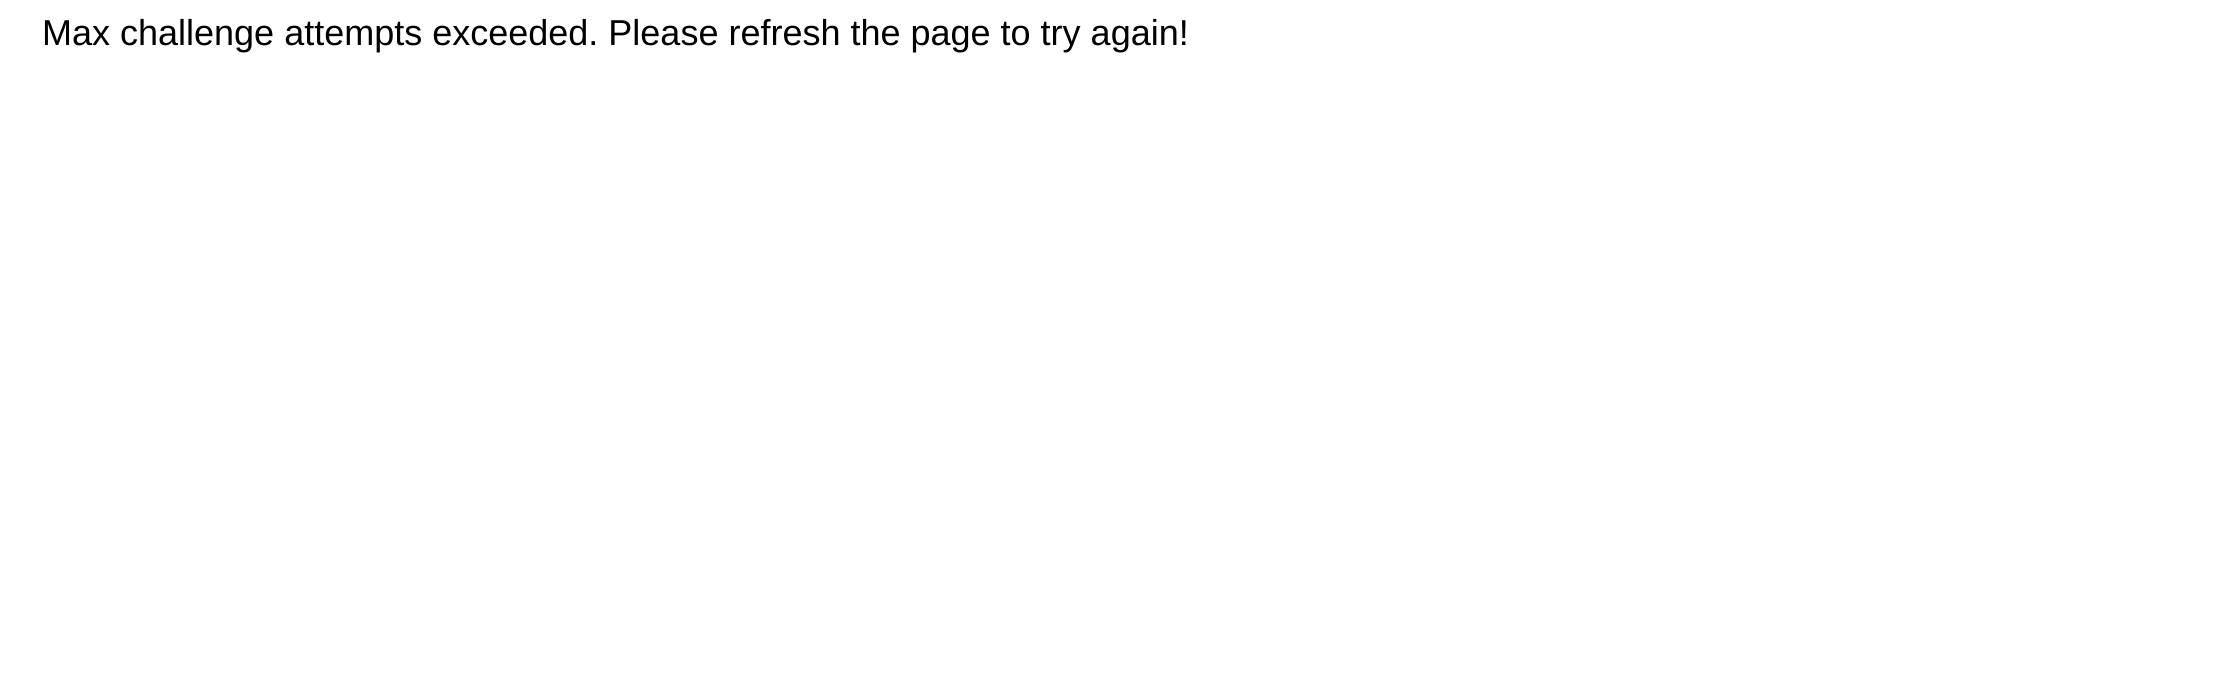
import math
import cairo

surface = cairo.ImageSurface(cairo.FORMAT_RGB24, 2213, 688)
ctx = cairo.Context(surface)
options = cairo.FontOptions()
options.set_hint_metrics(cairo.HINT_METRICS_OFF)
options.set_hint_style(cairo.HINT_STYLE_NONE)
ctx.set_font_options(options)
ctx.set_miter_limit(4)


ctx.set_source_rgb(1, 1, 1)
ctx.paint()
ctx.select_font_face("Liberation Sans")
ctx.set_font_size(36)
ctx.set_source_rgb(0, 0, 0)
ctx.move_to(42, 45)
ctx.show_text("Max challenge attempts exceeded. Please refresh the page to try again!")
surface.write_to_png("page.png")
